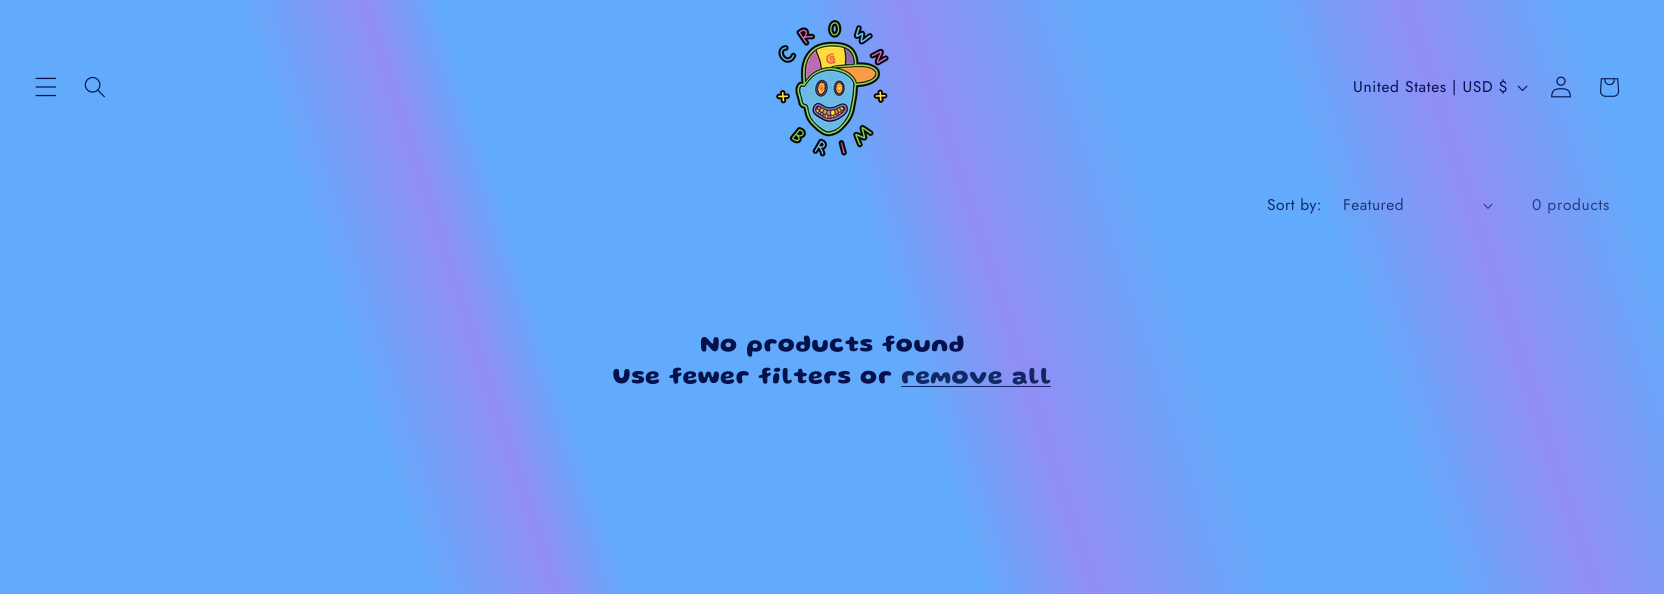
import math
import cairo

surface = cairo.ImageSurface(cairo.FORMAT_RGB24, 1664, 594)
ctx = cairo.Context(surface)
options = cairo.FontOptions()
options.set_hint_metrics(cairo.HINT_METRICS_OFF)
options.set_hint_style(cairo.HINT_STYLE_NONE)
ctx.set_font_options(options)
ctx.set_miter_limit(4)


def spaced_text(x, y, s, letter, word):
    ctx.move_to(x, y)
    for ch in s:
        ctx.show_text(ch)
        ctx.rel_move_to(letter + word * (ch == ' '), 0)


def picture(path, x, y, w, h):
    ctx.save()
    ctx.set_source_surface(cairo.ImageSurface.create_from_png(path), x, y)
    ctx.rectangle(x, y, w, h)
    ctx.fill()
    ctx.restore()


ctx.set_source_rgb(1, 1, 1)
ctx.paint()
gradient = cairo.LinearGradient(-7.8, 570, 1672, 24)
gradient.add_color_stop_rgba(0.23, 0.384, 0.667, 0.984, 1)
gradient.add_color_stop_rgba(0.3, 0.569, 0.557, 0.965, 1)
gradient.add_color_stop_rgba(0.34, 0.384, 0.667, 0.984, 1)
gradient.add_color_stop_rgba(0.53, 0.384, 0.667, 0.984, 1)
gradient.add_color_stop_rgba(0.59, 0.569, 0.557, 0.965, 1)
gradient.add_color_stop_rgba(0.69, 0.384, 0.667, 0.984, 1)
gradient.add_color_stop_rgba(0.78, 0.384, 0.667, 0.984, 1)
gradient.add_color_stop_rgba(0.86, 0.569, 0.557, 0.965, 1)
gradient.add_color_stop_rgba(0.95, 0.384, 0.667, 0.984, 1)
ctx.set_source(gradient)
ctx.rectangle(0, 0, 1664, 594)
ctx.fill()
gradient = cairo.LinearGradient(-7.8, 570, 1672, 24)
gradient.add_color_stop_rgba(0.23, 0.071, 0.157, 0.396, 1)
gradient.add_color_stop_rgba(0.3, 0.098, 0.141, 0.392, 1)
gradient.add_color_stop_rgba(0.34, 0.071, 0.157, 0.396, 1)
gradient.add_color_stop_rgba(0.53, 0.071, 0.157, 0.396, 1)
gradient.add_color_stop_rgba(0.59, 0.098, 0.141, 0.392, 1)
gradient.add_color_stop_rgba(0.69, 0.071, 0.157, 0.396, 1)
gradient.add_color_stop_rgba(0.78, 0.071, 0.157, 0.396, 1)
gradient.add_color_stop_rgba(0.86, 0.098, 0.141, 0.392, 1)
gradient.add_color_stop_rgba(0.95, 0.071, 0.157, 0.396, 1)
ctx.set_source(gradient)
ctx.rectangle(901, 386, 150, 1)
ctx.fill()
picture("img1.png", 35, 77, 21, 20)
picture("img2.png", 84, 76, 21, 22)
picture("img3.png", 776, 20, 113, 137)
ctx.select_font_face("Jost")
ctx.set_font_size(15.5)
ctx.set_source_rgb(0.016, 0.067, 0.29)
spaced_text(1353, 92, "United States | USD $", 0.7, 0)
picture("img4.png", 1517, 85, 11, 6)
picture("img5.png", 1551, 76, 20, 22)
picture("img6.png", 1600, 78, 20, 19)
ctx.set_source_rgb(0.071, 0.157, 0.396)
spaced_text(1267, 210, "Sort by:", 0.5, 0)
ctx.set_source_rgb(0.125, 0.208, 0.463)
spaced_text(1343, 210, "Featured", 0.5, 0)
picture("img7.png", 1483, 203, 10, 6)
ctx.set_source_rgb(0.149, 0.235, 0.494)
spaced_text(1532, 210, "0 products", 0.7, 0)
ctx.select_font_face("Gluten", cairo.FONT_SLANT_NORMAL, cairo.FONT_WEIGHT_BOLD)
ctx.set_font_size(24)
ctx.set_source_rgb(0.016, 0.067, 0.29)
spaced_text(700, 351, "No products found", 0.6, 0)
spaced_text(613, 383, "Use fewer filters or", 0.6, 0)
ctx.set_source_rgb(0.071, 0.157, 0.396)
spaced_text(901, 383, "remove all", 0.6, 0)
surface.write_to_png("page.png")
